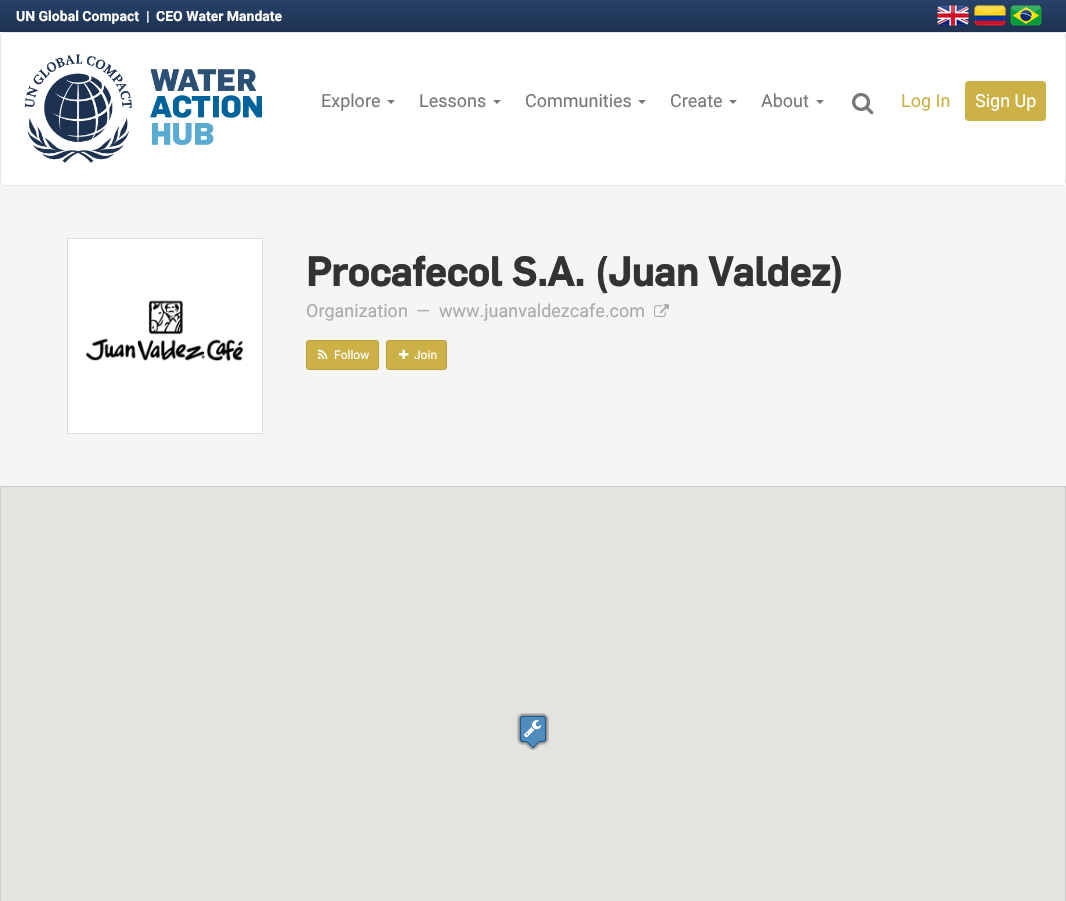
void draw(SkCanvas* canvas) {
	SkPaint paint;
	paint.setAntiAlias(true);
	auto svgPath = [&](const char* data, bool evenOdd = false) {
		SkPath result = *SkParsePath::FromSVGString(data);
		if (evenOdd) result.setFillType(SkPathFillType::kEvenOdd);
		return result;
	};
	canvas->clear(0xffffffff);
	{
		const SkColor colors[] = {0xff1e3250, 0xff274169};
		const float stops[] = {0, 1};
		const SkPoint ends[] = {{533, 32}, {533, 0}};
		paint.setShader(SkGradientShader::MakeLinear(ends, colors, stops, 2, SkTileMode::kClamp));
		paint.setAlpha(255);
	}
	canvas->drawRect(SkRect::MakeXYWH(0, 0, 1066, 32), paint);
	SkFont f1(fontMgr->matchFamilyStyle("Roboto", SkFontStyle::Bold()), 14);
	f1.setSubpixel(true);
	paint.setShader(nullptr);
	paint.setColor(0xffffffff);
	canvas->drawString("UN Global Compact", 16, 21, f1, paint);
	canvas->drawString("|", 146, 21, f1, paint);
	canvas->drawString("CEO Water Mandate", 156, 21, f1, paint);
	canvas->drawImageRect(SkImages::DeferredFromEncodedData(SkData::MakeFromFileName("img1.png")), SkRect::MakeXYWH(937, 5, 32, 21), SkSamplingOptions());
	canvas->drawImageRect(SkImages::DeferredFromEncodedData(SkData::MakeFromFileName("img2.png")), SkRect::MakeXYWH(974, 5, 32, 21), SkSamplingOptions());
	canvas->drawImageRect(SkImages::DeferredFromEncodedData(SkData::MakeFromFileName("img3.png")), SkRect::MakeXYWH(1010, 5, 32, 21), SkSamplingOptions());
	paint.setStroke(true);
	paint.setStrokeWidth(1);
	paint.setColor(0xffe7e7e7);
	canvas->drawRoundRect(SkRect::MakeXYWH(0.5, 32.5, 1065, 153), 3.5, 3.5, paint);
	canvas->drawImageRect(SkImages::DeferredFromEncodedData(SkData::MakeFromFileName("img4.png")), SkRect::MakeXYWH(24, 54, 238, 109), SkSamplingOptions());
	SkFont f2(fontMgr->matchFamilyStyle("Roboto", SkFontStyle::Normal()), 18);
	f2.setSubpixel(true);
	paint.setStroke(false);
	paint.setColor(0xff777777);
	canvas->drawString("Explore", 321, 107, f2, paint);
	canvas->drawPath(svgPath("M387 100H395L391 104Z"), paint);
	canvas->drawString("Lessons", 419, 107, f2, paint);
	canvas->drawPath(svgPath("M493 100H501L497 104Z"), paint);
	canvas->drawString("Communities", 525, 107, f2, paint);
	canvas->drawPath(svgPath("M638 100H646L642 104Z"), paint);
	canvas->drawString("Create", 670, 107, f2, paint);
	canvas->drawPath(svgPath("M729 100H737L733 104Z"), paint);
	canvas->drawString("About", 761, 107, f2, paint);
	canvas->drawPath(svgPath("M816 100H824L820 104Z"), paint);
	canvas->drawImageRect(SkImages::DeferredFromEncodedData(SkData::MakeFromFileName("img5.png")), SkRect::MakeXYWH(852, 93, 22, 22), SkSamplingOptions());
	paint.setColor(0xffccb146);
	canvas->drawString("Log In", 901, 107, f2, paint);
	canvas->drawRoundRect(SkRect::MakeXYWH(965, 81, 81, 40), 4, 4, paint);
	paint.setColor(0xffffffff);
	canvas->drawString("Sign Up", 975, 107, f2, paint);
	paint.setColor(0xfff5f5f5);
	canvas->drawRect(SkRect::MakeXYWH(0, 186, 1066, 300), paint);
	paint.setColor(0xffffffff);
	canvas->drawRect(SkRect::MakeXYWH(67.5, 238.5, 195, 195), paint);
	paint.setStroke(true);
	paint.setColor(0xffdddddd);
	canvas->drawRect(SkRect::MakeXYWH(67.5, 238.5, 195, 195), paint);
	canvas->drawImageRect(SkImages::DeferredFromEncodedData(SkData::MakeFromFileName("img6.png")), SkRect::MakeXYWH(86, 300, 158, 62), SkSamplingOptions());
	SkFont f3(fontMgr->matchFamilyStyle("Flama", SkFontStyle::Bold()), 40);
	f3.setSubpixel(true);
	paint.setStroke(false);
	paint.setColor(0xff333333);
	canvas->drawString("Procafecol S.A. (Juan Valdez)", 306, 286, f3, paint);
	paint.setColor(0xffaaaaaa);
	canvas->drawString("Organization", 306, 317, f2, paint);
	canvas->drawString("—", 416, 317, f2, paint);
	canvas->drawString("www.juanvaldezcafe.com", 439, 317, f2, paint);
	canvas->drawImageRect(SkImages::DeferredFromEncodedData(SkData::MakeFromFileName("img7.png")), SkRect::MakeXYWH(654, 304, 15, 13), SkSamplingOptions());
	paint.setColor(0xffccb146);
	canvas->drawRoundRect(SkRect::MakeXYWH(306.5, 340.5, 72, 29), 2.5, 2.5, paint);
	paint.setStroke(true);
	paint.setColor(0xffbca134);
	canvas->drawRoundRect(SkRect::MakeXYWH(306.5, 340.5, 72, 29), 2.5, 2.5, paint);
	canvas->drawImageRect(SkImages::DeferredFromEncodedData(SkData::MakeFromFileName("img8.png")), SkRect::MakeXYWH(318, 349, 10, 10), SkSamplingOptions());
	SkFont f4(fontMgr->matchFamilyStyle("Roboto", SkFontStyle::Normal()), 12);
	f4.setSubpixel(true);
	paint.setStroke(false);
	paint.setColor(0xffffffff);
	canvas->drawString("Follow", 334, 359, f4, paint);
	paint.setColor(0xffccb146);
	canvas->drawRoundRect(SkRect::MakeXYWH(386.5, 340.5, 60, 29), 2.5, 2.5, paint);
	paint.setStroke(true);
	paint.setColor(0xffbca134);
	canvas->drawRoundRect(SkRect::MakeXYWH(386.5, 340.5, 60, 29), 2.5, 2.5, paint);
	canvas->drawImageRect(SkImages::DeferredFromEncodedData(SkData::MakeFromFileName("img9.png")), SkRect::MakeXYWH(399, 349, 10, 10), SkSamplingOptions());
	paint.setStroke(false);
	paint.setColor(0xffffffff);
	canvas->drawString("Join", 414, 359, f4, paint);
	paint.setStroke(true);
	paint.setColor(0xffcccccc);
	canvas->drawRect(SkRect::MakeXYWH(0.5, 486.5, 1065, 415), paint);
	paint.setStroke(false);
	paint.setColor(0xffe5e3df);
	canvas->drawRect(SkRect::MakeXYWH(1, 487, 1064, 414), paint);
	canvas->drawImageRect(SkImages::DeferredFromEncodedData(SkData::MakeFromFileName("img10.png")), SkRect::MakeXYWH(517, 713, 32, 37), SkSamplingOptions());
	canvas->drawImageRect(SkImages::DeferredFromEncodedData(SkData::MakeFromFileName("img11.png")), SkRect::MakeXYWH(517, 713, 32, 37), SkSamplingOptions());
	canvas->drawImageRect(SkImages::DeferredFromEncodedData(SkData::MakeFromFileName("img12.png")), SkRect::MakeXYWH(517, 713, 32, 37), SkSamplingOptions());
}
